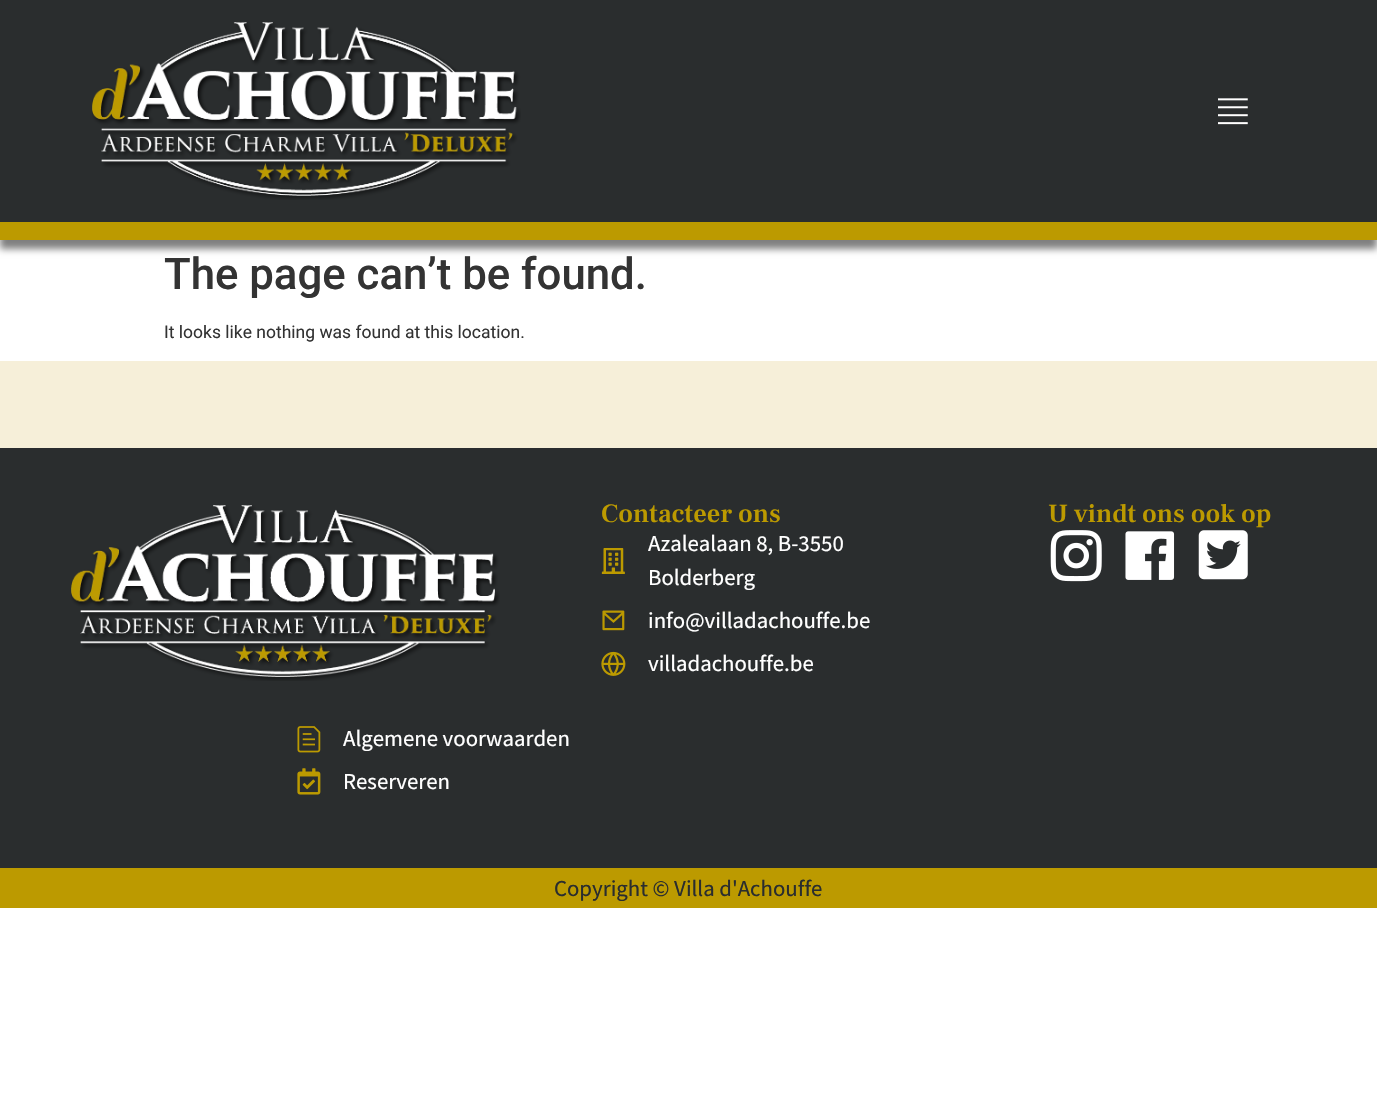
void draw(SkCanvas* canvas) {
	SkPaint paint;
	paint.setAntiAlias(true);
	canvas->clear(0xffffffff);
	paint.setColor(0x80000000);
	paint.setMaskFilter(SkMaskFilter::MakeBlur(kNormal_SkBlurStyle, 3.5));
	canvas->drawRect(SkRect::MakeXYWH(0, 9, 1377, 240), paint);
	paint.setMaskFilter(nullptr);
	paint.setColor(0xff2a2d2e);
	canvas->drawRect(SkRect::MakeXYWH(0, 0, 1377, 222), paint);
	paint.setColor(0xffbc9a00);
	canvas->drawRect(SkRect::MakeXYWH(0, 222, 1377, 18), paint);
	canvas->drawImageRect(SkImages::DeferredFromEncodedData(SkData::MakeFromFileName("img1.png")), SkRect::MakeXYWH(92, 22, 429, 178), SkSamplingOptions());
	canvas->drawImageRect(SkImages::DeferredFromEncodedData(SkData::MakeFromFileName("img2.png")), SkRect::MakeXYWH(1218, 98, 30, 27), SkSamplingOptions());
	SkFont f1(fontMgr->matchFamilyStyle("Roboto", SkFontStyle(500, SkFontStyle::kNormal_Width, SkFontStyle::kUpright_Slant)), 43.75);
	f1.setSubpixel(true);
	paint.setColor(0xff333333);
	canvas->drawString("The page can’t be found.", 164, 289, f1, paint);
	SkFont f2(fontMgr->matchFamilyStyle("Roboto", SkFontStyle::Normal()), 17.5);
	f2.setSubpixel(true);
	canvas->drawString("It looks like nothing was found at this location.", 164, 338, f2, paint);
	paint.setColor(0xfff6efd9);
	canvas->drawRect(SkRect::MakeXYWH(0, 361, 1377, 87), paint);
	paint.setColor(0xff2a2d2e);
	canvas->drawRect(SkRect::MakeXYWH(0, 448, 1377, 420), paint);
	canvas->drawImageRect(SkImages::DeferredFromEncodedData(SkData::MakeFromFileName("img3.png")), SkRect::MakeXYWH(71, 505, 429, 176), SkSamplingOptions());
	SkFont f3(fontMgr->matchFamilyStyle("Frank Ruhl Libre", SkFontStyle(600, SkFontStyle::kNormal_Width, SkFontStyle::kUpright_Slant)), 26.25);
	f3.setSubpixel(true);
	paint.setColor(0xffbc9a00);
	canvas->drawString("Contacteer ons", 601, 522, f3, paint);
	canvas->drawImageRect(SkImages::DeferredFromEncodedData(SkData::MakeFromFileName("img4.png")), SkRect::MakeXYWH(601, 548, 24, 26), SkSamplingOptions());
	SkFont f4(fontMgr->matchFamilyStyle("Assistant", SkFontStyle(500, SkFontStyle::kNormal_Width, SkFontStyle::kUpright_Slant)), 22.75);
	f4.setSubpixel(true);
	paint.setColor(0xffffffff);
	canvas->drawString("Azalealaan 8, B-3550", 648, 551, f4, paint);
	canvas->drawString("Bolderberg", 648, 585, f4, paint);
	canvas->drawImageRect(SkImages::DeferredFromEncodedData(SkData::MakeFromFileName("img5.png")), SkRect::MakeXYWH(602, 610, 23, 21), SkSamplingOptions());
	canvas->drawString("info@villadachouffe.be", 648, 628, f4, paint);
	canvas->drawImageRect(SkImages::DeferredFromEncodedData(SkData::MakeFromFileName("img6.png")), SkRect::MakeXYWH(601, 651, 25, 25), SkSamplingOptions());
	canvas->drawString("villadachouffe.be", 648, 671, f4, paint);
	paint.setColor(0xffbc9a00);
	canvas->drawString("U vindt ons ook op", 1048, 522, f3, paint);
	canvas->drawImageRect(SkImages::DeferredFromEncodedData(SkData::MakeFromFileName("img7.png")), SkRect::MakeXYWH(1050, 530, 52, 52), SkSamplingOptions());
	canvas->drawImageRect(SkImages::DeferredFromEncodedData(SkData::MakeFromFileName("img8.png")), SkRect::MakeXYWH(1125, 531, 50, 49), SkSamplingOptions());
	canvas->drawImageRect(SkImages::DeferredFromEncodedData(SkData::MakeFromFileName("img9.png")), SkRect::MakeXYWH(1198, 530, 50, 50), SkSamplingOptions());
	canvas->drawImageRect(SkImages::DeferredFromEncodedData(SkData::MakeFromFileName("img10.png")), SkRect::MakeXYWH(297, 726, 24, 27), SkSamplingOptions());
	paint.setColor(0xffffffff);
	canvas->drawString("Algemene voorwaarden", 343, 746, f4, paint);
	canvas->drawImageRect(SkImages::DeferredFromEncodedData(SkData::MakeFromFileName("img11.png")), SkRect::MakeXYWH(297, 768, 24, 27), SkSamplingOptions());
	canvas->drawString("Reserveren", 343, 789, f4, paint);
	paint.setColor(0xffbc9a00);
	canvas->drawRect(SkRect::MakeXYWH(0, 868, 1377, 40), paint);
	paint.setColor(0xff2a2d2e);
	canvas->drawString("Copyright © Villa d'Achouffe", 554, 896, f4, paint);
}
